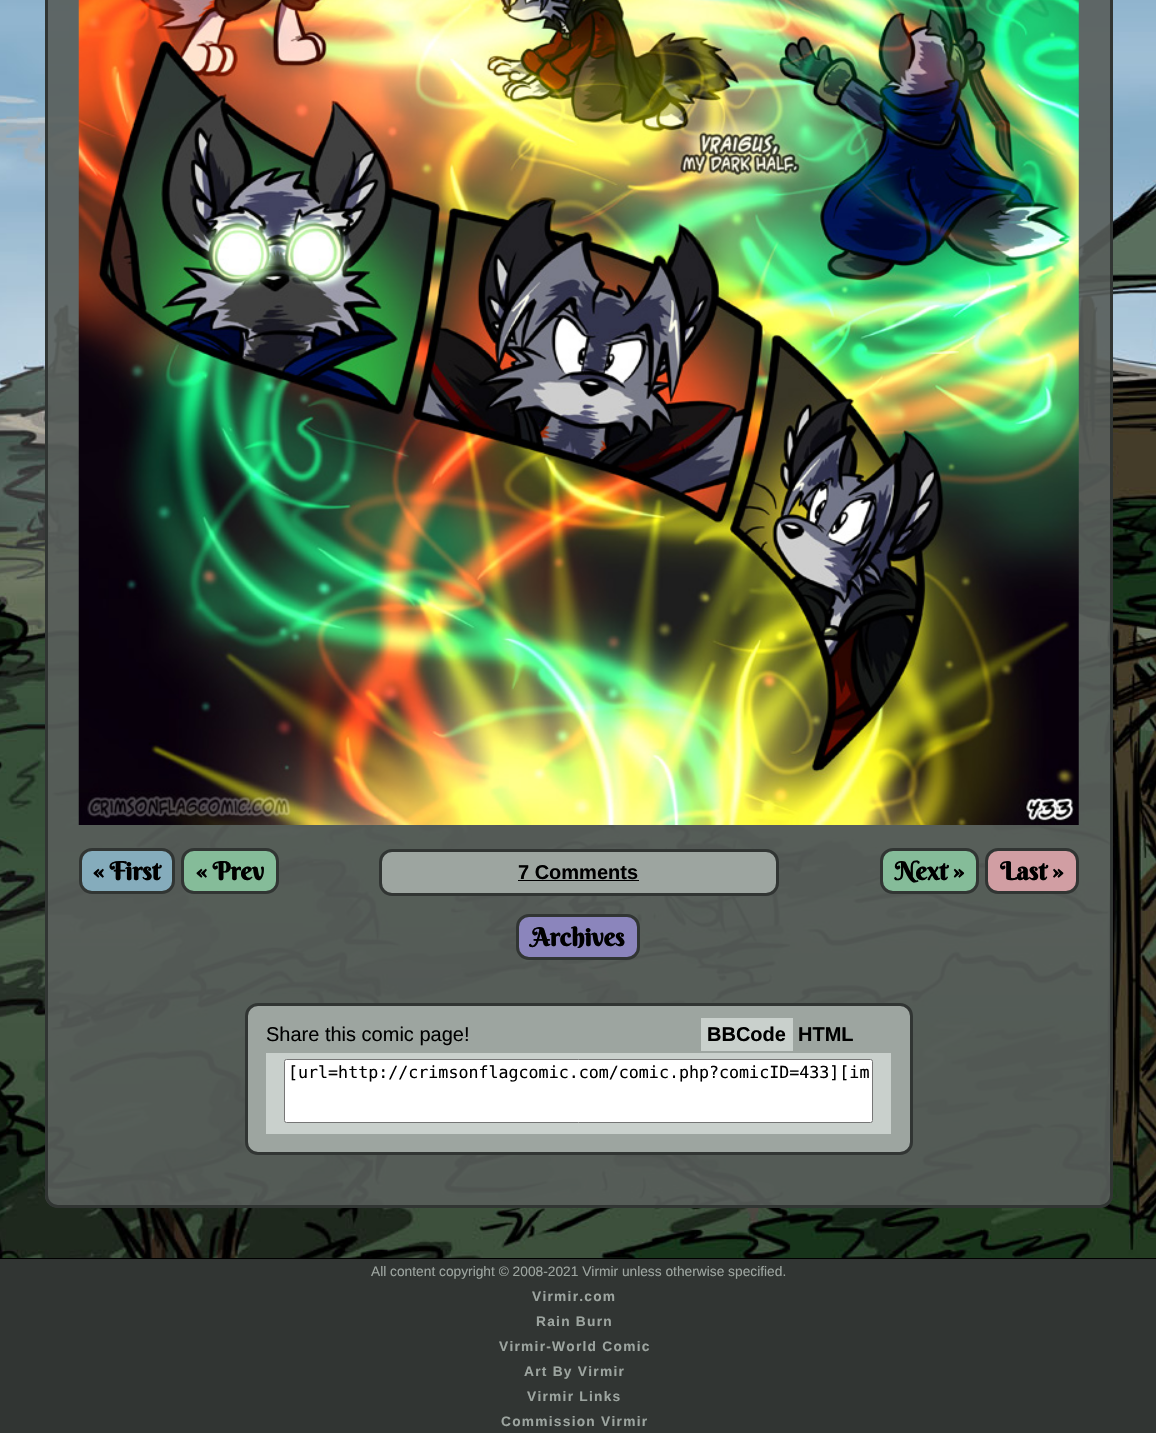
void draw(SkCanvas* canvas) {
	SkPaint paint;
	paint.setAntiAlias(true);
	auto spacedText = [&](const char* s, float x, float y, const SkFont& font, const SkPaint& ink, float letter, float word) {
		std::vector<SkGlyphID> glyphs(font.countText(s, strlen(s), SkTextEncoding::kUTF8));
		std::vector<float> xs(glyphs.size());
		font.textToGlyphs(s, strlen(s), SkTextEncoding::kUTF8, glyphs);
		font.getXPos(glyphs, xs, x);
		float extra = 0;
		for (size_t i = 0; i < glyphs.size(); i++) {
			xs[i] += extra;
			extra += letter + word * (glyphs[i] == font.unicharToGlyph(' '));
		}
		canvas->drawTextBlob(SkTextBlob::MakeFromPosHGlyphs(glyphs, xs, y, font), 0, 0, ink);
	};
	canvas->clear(0xffffffff);
	canvas->drawImageRect(SkImages::DeferredFromEncodedData(SkData::MakeFromFileName("img1.png")), SkRect::MakeXYWH(0, 404, 1156, 854), SkSamplingOptions());
	canvas->drawImageRect(SkImages::DeferredFromEncodedData(SkData::MakeFromFileName("img2.png")), SkRect::MakeXYWH(0, 0, 1156, 404), SkSamplingOptions());
	canvas->drawImageRect(SkImages::DeferredFromEncodedData(SkData::MakeFromFileName("img3.png")), SkRect::MakeXYWH(45, 0, 1068, 1208), SkSamplingOptions());
	paint.setStroke(true);
	paint.setStrokeWidth(3);
	paint.setColor(0xff313533);
	canvas->drawRoundRect(SkRect::MakeXYWH(46.5, -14.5, 1065, 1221), 11.5, 11.5, paint);
	canvas->drawImageRect(SkImages::DeferredFromEncodedData(SkData::MakeFromFileName("img4.png")), SkRect::MakeXYWH(78, 0, 1001, 825), SkSamplingOptions());
	paint.setStroke(false);
	paint.setColor(0xff85acbc);
	canvas->drawRoundRect(SkRect::MakeXYWH(80.5, 849.5, 93, 43), 11.5, 11.5, paint);
	paint.setStroke(true);
	paint.setColor(0xff313533);
	canvas->drawRoundRect(SkRect::MakeXYWH(80.5, 849.5, 93, 43), 11.5, 11.5, paint);
	SkFont f1(fontMgr->matchFamilyStyle("Berkshire Swash", SkFontStyle::Bold()), 25);
	f1.setSubpixel(true);
	paint.setStroke(false);
	paint.setColor(0xff000000);
	canvas->drawString("« First", 93, 880, f1, paint);
	paint.setColor(0xff85bc99);
	canvas->drawRoundRect(SkRect::MakeXYWH(182.5, 849.5, 95, 43), 11.5, 11.5, paint);
	paint.setStroke(true);
	paint.setColor(0xff313533);
	canvas->drawRoundRect(SkRect::MakeXYWH(182.5, 849.5, 95, 43), 11.5, 11.5, paint);
	paint.setStroke(false);
	paint.setColor(0xff000000);
	canvas->drawString("« Prev", 196, 880, f1, paint);
	paint.setColor(0xff9da5a0);
	canvas->drawRoundRect(SkRect::MakeXYWH(380.5, 850.5, 397, 44), 11.5, 11.5, paint);
	paint.setStroke(true);
	paint.setColor(0xff313533);
	canvas->drawRoundRect(SkRect::MakeXYWH(380.5, 850.5, 397, 44), 11.5, 11.5, paint);
	SkFont f2(fontMgr->matchFamilyStyle("Liberation Sans", SkFontStyle::Bold()), 20);
	f2.setSubpixel(true);
	paint.setStroke(false);
	paint.setColor(0xff000000);
	canvas->drawString("7 Comments", 518, 879, f2, paint);
	canvas->drawRect(SkRect::MakeXYWH(518, 880, 121, 1), paint);
	paint.setColor(0xff85bc99);
	canvas->drawRoundRect(SkRect::MakeXYWH(881.5, 849.5, 96, 43), 11.5, 11.5, paint);
	paint.setStroke(true);
	paint.setColor(0xff313533);
	canvas->drawRoundRect(SkRect::MakeXYWH(881.5, 849.5, 96, 43), 11.5, 11.5, paint);
	paint.setStroke(false);
	paint.setColor(0xff000000);
	canvas->drawString("Next »", 895, 880, f1, paint);
	paint.setColor(0xffd19ea3);
	canvas->drawRoundRect(SkRect::MakeXYWH(986.5, 849.5, 91, 43), 11.5, 11.5, paint);
	paint.setStroke(true);
	paint.setColor(0xff313533);
	canvas->drawRoundRect(SkRect::MakeXYWH(986.5, 849.5, 91, 43), 11.5, 11.5, paint);
	paint.setStroke(false);
	paint.setColor(0xff000000);
	canvas->drawString("Last »", 1000, 880, f1, paint);
	paint.setColor(0xff8b85bc);
	canvas->drawRoundRect(SkRect::MakeXYWH(517.5, 915.5, 121, 43), 11.5, 11.5, paint);
	paint.setStroke(true);
	paint.setColor(0xff313533);
	canvas->drawRoundRect(SkRect::MakeXYWH(517.5, 915.5, 121, 43), 11.5, 11.5, paint);
	paint.setStroke(false);
	paint.setColor(0xff000000);
	canvas->drawString("Archives", 531, 946, f1, paint);
	paint.setColor(0xff9da5a0);
	canvas->drawRoundRect(SkRect::MakeXYWH(246.5, 1004.5, 665, 149), 11.5, 11.5, paint);
	paint.setStroke(true);
	paint.setColor(0xff313533);
	canvas->drawRoundRect(SkRect::MakeXYWH(246.5, 1004.5, 665, 149), 11.5, 11.5, paint);
	SkFont f3(fontMgr->matchFamilyStyle("Liberation Sans", SkFontStyle::Normal()), 20);
	f3.setSubpixel(true);
	paint.setStroke(false);
	paint.setColor(0xff000000);
	canvas->drawString("Share this comic page!", 266, 1041, f3, paint);
	paint.setColor(0xffc9d0cc);
	canvas->drawRect(SkRect::MakeXYWH(701, 1018, 92, 33), paint);
	paint.setColor(0xff000000);
	canvas->drawString("BBCode", 707, 1041, f2, paint);
	canvas->drawString("HTML", 798, 1041, f2, paint);
	paint.setColor(0xffc9d0cc);
	canvas->drawRect(SkRect::MakeXYWH(266, 1053, 625, 81), paint);
	paint.setColor(0xffffffff);
	canvas->drawRoundRect(SkRect::MakeXYWH(284.5, 1059.5, 588, 63), 2, 2, paint);
	paint.setStroke(true);
	paint.setStrokeWidth(1);
	paint.setColor(0xff767676);
	canvas->drawRoundRect(SkRect::MakeXYWH(284.5, 1059.5, 588, 63), 2, 2, paint);
	SkFont f4(fontMgr->matchFamilyStyle("DejaVu Sans Mono", SkFontStyle::Normal()), 16.65);
	f4.setSubpixel(true);
	paint.setStroke(false);
	paint.setColor(0xff000000);
	canvas->drawString("[url=http://crimsonflagcomic.com/comic.php?comicID=433][im", 288, 1078, f4, paint);
	paint.setColor(0xff313533);
	canvas->drawRect(SkRect::MakeXYWH(0, 1259, 1156, 174), paint);
	paint.setColor(0xff000000);
	canvas->drawRect(SkRect::MakeXYWH(0, 1258, 1156, 1), paint);
	SkFont f5(fontMgr->matchFamilyStyle("Liberation Sans", SkFontStyle::Normal()), 13.75);
	f5.setSubpixel(true);
	paint.setColor(0xff9da5a0);
	canvas->drawString("All content copyright © 2008-2021 Virmir unless otherwise specified.", 371, 1276, f5, paint);
	SkFont f6(fontMgr->matchFamilyStyle("Liberation Sans", SkFontStyle::Bold()), 13.75);
	f6.setSubpixel(true);
	spacedText("Virmir.com", 532, 1301, f6, paint, 1.25, 0);
	spacedText("Rain Burn", 536, 1326, f6, paint, 1.25, 0);
	spacedText("Virmir-World Comic", 499, 1351, f6, paint, 1.25, 0);
	spacedText("Art By Virmir", 524, 1376, f6, paint, 1.25, 0);
	spacedText("Virmir Links", 527, 1401, f6, paint, 1.25, 0);
	spacedText("Commission Virmir", 501, 1426, f6, paint, 1.25, 0);
}
